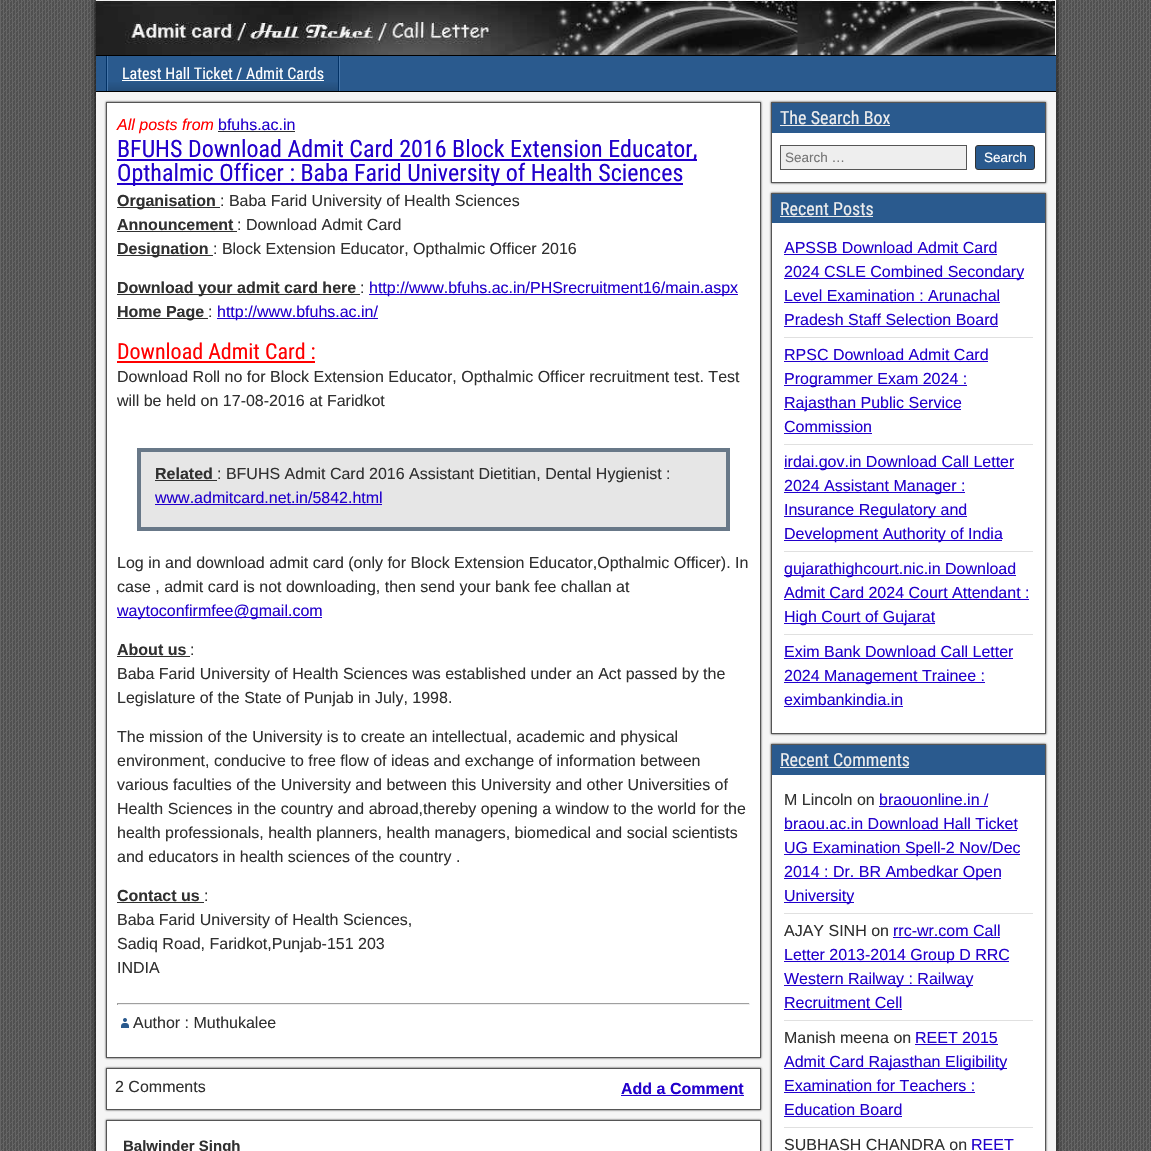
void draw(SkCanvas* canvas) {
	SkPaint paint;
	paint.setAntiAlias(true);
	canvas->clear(0xff505050);
	canvas->drawImageRect(SkImages::DeferredFromEncodedData(SkData::MakeFromFileName("img1.png")), SkRect::MakeXYWH(0, 0, 1151, 1151), SkSamplingOptions());
	paint.setColor(0xff000000);
	paint.setMaskFilter(SkMaskFilter::MakeBlur(kNormal_SkBlurStyle, 3));
	canvas->drawRect(SkRect::MakeXYWH(96, 0, 960, 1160), paint);
	paint.setMaskFilter(nullptr);
	paint.setColor(0xffffffff);
	canvas->drawRect(SkRect::MakeXYWH(1055, 0, 1, 55), paint);
	paint.setColor(0xff000000);
	canvas->drawRect(SkRect::MakeXYWH(96, 55, 960, 1), paint);
	canvas->drawImageRect(SkImages::DeferredFromEncodedData(SkData::MakeFromFileName("img2.png")), SkRect::MakeXYWH(96, 0, 959, 55), SkSamplingOptions());
	paint.setColor(0xff2a5a8e);
	canvas->drawRect(SkRect::MakeXYWH(96, 56, 960, 35), paint);
	paint.setColor(0xff000000);
	canvas->drawRect(SkRect::MakeXYWH(96, 91, 960, 1), paint);
	paint.setColor(0xff4878ac);
	canvas->drawRect(SkRect::MakeXYWH(339, 56, 1, 35), paint);
	paint.setColor(0xff023266);
	canvas->drawRect(SkRect::MakeXYWH(106, 56, 1, 35), paint);
	{
		const SkColor colors[] = {0xff2a5a8e, 0xff244d79};
		const float stops[] = {0.7, 1};
		const SkPoint ends[] = {{223, 56}, {223, 91}};
		paint.setShader(SkGradientShader::MakeLinear(ends, colors, stops, 2, SkTileMode::kClamp));
		paint.setAlpha(255);
	}
	canvas->drawRect(SkRect::MakeXYWH(108, 82, 230, 9), paint);
	paint.setShader(nullptr);
	paint.setColor(0xff023266);
	canvas->drawRect(SkRect::MakeXYWH(338, 56, 1, 35), paint);
	paint.setColor(0xff4878ac);
	canvas->drawRect(SkRect::MakeXYWH(107, 56, 1, 35), paint);
	SkFont f1(fontMgr->matchFamilyStyle("Roboto Condensed", SkFontStyle::Normal()), 16);
	f1.setSubpixel(true);
	paint.setColor(0xffffffff);
	canvas->drawString("Latest Hall Ticket / Admit Cards", 122, 79, f1, paint);
	canvas->drawRect(SkRect::MakeXYWH(122, 80, 202, 1), paint);
	paint.setColor(0xfff5f5f5);
	canvas->drawRect(SkRect::MakeXYWH(96, 92, 960, 1059), paint);
	paint.setColor(0xff333333);
	paint.setMaskFilter(SkMaskFilter::MakeBlur(kNormal_SkBlurStyle, 1));
	canvas->drawRect(SkRect::MakeXYWH(106, 102, 655, 956), paint);
	paint.setMaskFilter(nullptr);
	paint.setColor(0xffffffff);
	canvas->drawRect(SkRect::MakeXYWH(106.5, 102.5, 654, 955), paint);
	paint.setStroke(true);
	paint.setStrokeWidth(1);
	paint.setColor(0xff555555);
	canvas->drawRect(SkRect::MakeXYWH(106.5, 102.5, 654, 955), paint);
	SkFont f2(fontMgr->matchFamilyStyle("Liberation Sans", SkFontStyle::Italic()), 16);
	f2.setSubpixel(true);
	paint.setStroke(false);
	paint.setColor(0xffff0000);
	canvas->drawString("All posts from", 117, 130, f2, paint);
	SkFont f3(fontMgr->matchFamilyStyle("Liberation Sans", SkFontStyle::Normal()), 16);
	f3.setSubpixel(true);
	paint.setColor(0xff2200cc);
	canvas->drawString("bfuhs.ac.in", 218, 130, f3, paint);
	paint.setColor(0xff303030);
	canvas->drawRect(SkRect::MakeXYWH(218, 131, 77, 1), paint);
	paint.setColor(0xff2200cc);
	canvas->drawRect(SkRect::MakeXYWH(117, 159, 580, 2), paint);
	SkFont f4(fontMgr->matchFamilyStyle("Roboto Condensed", SkFontStyle::Normal()), 24);
	f4.setSubpixel(true);
	canvas->drawString("BFUHS Download Admit Card 2016 Block Extension Educator,", 117, 157, f4, paint);
	canvas->drawRect(SkRect::MakeXYWH(117, 183, 566, 2), paint);
	canvas->drawString("Opthalmic Officer : Baba Farid University of Health Sciences", 117, 181, f4, paint);
	paint.setColor(0xff303030);
	canvas->drawRect(SkRect::MakeXYWH(117, 207, 103, 1), paint);
	SkFont f5(fontMgr->matchFamilyStyle("Liberation Sans", SkFontStyle::Bold()), 16);
	f5.setSubpixel(true);
	canvas->drawString("Organisation", 117, 206, f5, paint);
	canvas->drawString(": Baba Farid University of Health Sciences", 220, 206, f3, paint);
	canvas->drawString("Announcement", 117, 230, f5, paint);
	canvas->drawRect(SkRect::MakeXYWH(117, 231, 120, 1), paint);
	canvas->drawString(": Download Admit Card", 237, 230, f3, paint);
	canvas->drawRect(SkRect::MakeXYWH(117, 255, 96, 1), paint);
	canvas->drawString("Designation", 117, 254, f5, paint);
	canvas->drawString(": Block Extension Educator, Opthalmic Officer 2016", 213, 254, f3, paint);
	canvas->drawRect(SkRect::MakeXYWH(117, 294, 243, 1), paint);
	canvas->drawString("Download your admit card here", 117, 293, f5, paint);
	canvas->drawString(":", 360, 293, f3, paint);
	paint.setColor(0xff2200cc);
	canvas->drawRect(SkRect::MakeXYWH(369, 294, 369, 1), paint);
	canvas->drawString("http://www.bfuhs.ac.in/PHSrecruitment16/main.aspx", 369, 293, f3, paint);
	paint.setColor(0xff303030);
	canvas->drawRect(SkRect::MakeXYWH(117, 318, 91, 1), paint);
	canvas->drawString("Home Page", 117, 317, f5, paint);
	canvas->drawString(":", 208, 317, f3, paint);
	paint.setColor(0xff2200cc);
	canvas->drawRect(SkRect::MakeXYWH(217, 318, 161, 1), paint);
	canvas->drawString("http://www.bfuhs.ac.in/", 217, 317, f3, paint);
	SkFont f6(fontMgr->matchFamilyStyle("Roboto Condensed", SkFontStyle::Normal()), 22);
	f6.setSubpixel(true);
	paint.setColor(0xffff0000);
	canvas->drawString("Download Admit Card :", 117, 359, f6, paint);
	canvas->drawRect(SkRect::MakeXYWH(117, 361, 198, 2), paint);
	paint.setColor(0xff303030);
	canvas->drawString("Download Roll no for Block Extension Educator, Opthalmic Officer recruitment test. Test", 117, 382, f3, paint);
	canvas->drawString("will be held on 17-08-2016 at Faridkot", 117, 406, f3, paint);
	paint.setColor(0xffe6e6e6);
	canvas->drawRect(SkRect::MakeXYWH(139, 450, 589, 79), paint);
	paint.setStroke(true);
	paint.setStrokeWidth(4);
	paint.setColor(0xff687888);
	canvas->drawRect(SkRect::MakeXYWH(139, 450, 589, 79), paint);
	paint.setStroke(false);
	paint.setColor(0xff303030);
	canvas->drawString("Related", 155, 479, f5, paint);
	canvas->drawRect(SkRect::MakeXYWH(155, 480, 62, 1), paint);
	canvas->drawString(": BFUHS Admit Card 2016 Assistant Dietitian, Dental Hygienist :", 217, 479, f3, paint);
	paint.setColor(0xff2200cc);
	canvas->drawString("www.admitcard.net.in/5842.html", 155, 503, f3, paint);
	canvas->drawRect(SkRect::MakeXYWH(155, 504, 227, 1), paint);
	paint.setColor(0xff303030);
	canvas->drawString("Log in and download admit card (only for Block Extension Educator,Opthalmic Officer). In", 117, 568, f3, paint);
	canvas->drawString("case , admit card is not downloading, then send your bank fee challan at", 117, 592, f3, paint);
	paint.setColor(0xff2200cc);
	canvas->drawRect(SkRect::MakeXYWH(117, 617, 205, 1), paint);
	canvas->drawString("waytoconfirmfee@gmail.com", 117, 616, f3, paint);
	paint.setColor(0xff303030);
	canvas->drawString("About us", 117, 655, f5, paint);
	canvas->drawRect(SkRect::MakeXYWH(117, 656, 73, 1), paint);
	canvas->drawString(":", 190, 655, f3, paint);
	canvas->drawString("Baba Farid University of Health Sciences was established under an Act passed by the", 117, 679, f3, paint);
	canvas->drawString("Legislature of the State of Punjab in July, 1998.", 117, 703, f3, paint);
	canvas->drawString("The mission of the University is to create an intellectual, academic and physical", 117, 742, f3, paint);
	canvas->drawString("environment, conducive to free flow of ideas and exchange of information between", 117, 766, f3, paint);
	canvas->drawString("various faculties of the University and between this University and other Universities of", 117, 790, f3, paint);
	canvas->drawString("Health Sciences in the country and abroad,thereby opening a window to the world for the", 117, 814, f3, paint);
	canvas->drawString("health professionals, health planners, health managers, biomedical and social scientists", 117, 838, f3, paint);
	canvas->drawString("and educators in health sciences of the country .", 117, 862, f3, paint);
	canvas->drawString("Contact us", 117, 901, f5, paint);
	canvas->drawRect(SkRect::MakeXYWH(117, 902, 87, 1), paint);
	canvas->drawString(":", 204, 901, f3, paint);
	canvas->drawString("Baba Farid University of Health Sciences,", 117, 925, f3, paint);
	canvas->drawString("Sadiq Road, Faridkot,Punjab-151 203", 117, 949, f3, paint);
	canvas->drawString("INDIA", 117, 973, f3, paint);
	paint.setColor(0xff9f9f9f);
	canvas->drawRect(SkRect::MakeXYWH(117, 1003, 633, 1), paint);
	paint.setColor(0xffeeeeee);
	canvas->drawRect(SkRect::MakeXYWH(749, 1003, 1, 2), paint);
	canvas->drawRect(SkRect::MakeXYWH(117, 1004, 633, 1), paint);
	paint.setColor(0xff9f9f9f);
	canvas->drawRect(SkRect::MakeXYWH(117, 1003, 1, 2), paint);
	canvas->drawImageRect(SkImages::DeferredFromEncodedData(SkData::MakeFromFileName("img3.png")), SkRect::MakeXYWH(121, 1018, 8, 10), SkSamplingOptions());
	paint.setColor(0xff303030);
	canvas->drawString("Author : Muthukalee", 133, 1028, f3, paint);
	paint.setColor(0xff333333);
	paint.setMaskFilter(SkMaskFilter::MakeBlur(kNormal_SkBlurStyle, 1));
	canvas->drawRect(SkRect::MakeXYWH(106, 1068, 655, 42), paint);
	paint.setMaskFilter(nullptr);
	paint.setColor(0xffffffff);
	canvas->drawRect(SkRect::MakeXYWH(106.5, 1068.5, 654, 41), paint);
	paint.setStroke(true);
	paint.setStrokeWidth(1);
	paint.setColor(0xff555555);
	canvas->drawRect(SkRect::MakeXYWH(106.5, 1068.5, 654, 41), paint);
	paint.setStroke(false);
	paint.setColor(0xff303030);
	canvas->drawString("2 Comments", 115, 1092, f3, paint);
	paint.setColor(0xff2200cc);
	canvas->drawString("Add a Comment", 621, 1094, f5, paint);
	canvas->drawRect(SkRect::MakeXYWH(621, 1095, 123, 1), paint);
	paint.setColor(0xff333333);
	paint.setMaskFilter(SkMaskFilter::MakeBlur(kNormal_SkBlurStyle, 1));
	canvas->drawRect(SkRect::MakeXYWH(106, 1120, 655, 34), paint);
	paint.setMaskFilter(nullptr);
	paint.setColor(0xffffffff);
	canvas->drawRect(SkRect::MakeXYWH(106.5, 1120.5, 654, 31), paint);
	paint.setStroke(true);
	paint.setColor(0xff555555);
	canvas->drawRect(SkRect::MakeXYWH(106.5, 1120.5, 654, 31), paint);
	SkFont f7(fontMgr->matchFamilyStyle("Liberation Sans", SkFontStyle::Bold()), 15);
	f7.setSubpixel(true);
	paint.setStroke(false);
	paint.setColor(0xff303030);
	canvas->drawString("Balwinder Singh", 123, 1151, f7, paint);
	paint.setColor(0xff333333);
	paint.setMaskFilter(SkMaskFilter::MakeBlur(kNormal_SkBlurStyle, 1));
	canvas->drawRect(SkRect::MakeXYWH(771, 102, 275, 81), paint);
	paint.setMaskFilter(nullptr);
	paint.setColor(0xffffffff);
	canvas->drawRect(SkRect::MakeXYWH(772, 133, 273, 49), paint);
	paint.setStroke(true);
	paint.setColor(0xff555555);
	canvas->drawRect(SkRect::MakeXYWH(771.5, 102.5, 274, 80), paint);
	paint.setStroke(false);
	paint.setColor(0xff2a5a8e);
	canvas->drawRect(SkRect::MakeXYWH(772, 103, 273, 30), paint);
	SkFont f8(fontMgr->matchFamilyStyle("Roboto Condensed", SkFontStyle::Normal()), 18);
	f8.setSubpixel(true);
	paint.setColor(0xffeeeeee);
	canvas->drawString("The Search Box", 780, 124, f8, paint);
	canvas->drawRect(SkRect::MakeXYWH(780, 125, 110, 1), paint);
	canvas->drawRect(SkRect::MakeXYWH(780.5, 145.5, 186, 24), paint);
	paint.setStroke(true);
	paint.setColor(0xff555555);
	canvas->drawRect(SkRect::MakeXYWH(780.5, 145.5, 186, 24), paint);
	SkFont f9(fontMgr->matchFamilyStyle("Liberation Sans", SkFontStyle::Normal()), 13.5);
	f9.setSubpixel(true);
	paint.setStroke(false);
	paint.setColor(0xff757575);
	canvas->drawString("Search …", 785, 162, f9, paint);
	paint.setColor(0xff2a5a8e);
	canvas->drawRoundRect(SkRect::MakeXYWH(975.5, 145.5, 59, 24), 2.5, 2.5, paint);
	paint.setStroke(true);
	paint.setColor(0xff333333);
	canvas->drawRoundRect(SkRect::MakeXYWH(975.5, 145.5, 59, 24), 2.5, 2.5, paint);
	paint.setStroke(false);
	paint.setColor(0xffffffff);
	canvas->drawString("Search", 984, 162, f9, paint);
	paint.setColor(0xff333333);
	paint.setMaskFilter(SkMaskFilter::MakeBlur(kNormal_SkBlurStyle, 1));
	canvas->drawRect(SkRect::MakeXYWH(771, 193, 275, 541), paint);
	paint.setMaskFilter(nullptr);
	paint.setColor(0xffffffff);
	canvas->drawRect(SkRect::MakeXYWH(772, 223, 273, 510), paint);
	paint.setStroke(true);
	paint.setColor(0xff555555);
	canvas->drawRect(SkRect::MakeXYWH(771.5, 193.5, 274, 540), paint);
	paint.setStroke(false);
	paint.setColor(0xff2a5a8e);
	canvas->drawRect(SkRect::MakeXYWH(772, 194, 273, 29), paint);
	paint.setColor(0xffeeeeee);
	canvas->drawString("Recent Posts", 780, 215, f8, paint);
	canvas->drawRect(SkRect::MakeXYWH(780, 216, 93, 1), paint);
	paint.setColor(0xffe0e0e0);
	canvas->drawRect(SkRect::MakeXYWH(784, 337, 249, 1), paint);
	paint.setColor(0xff2200cc);
	canvas->drawString("APSSB Download Admit Card", 784, 253, f3, paint);
	canvas->drawRect(SkRect::MakeXYWH(784, 254, 213, 1), paint);
	canvas->drawRect(SkRect::MakeXYWH(784, 278, 240, 1), paint);
	canvas->drawString("2024 CSLE Combined Secondary", 784, 277, f3, paint);
	canvas->drawString("Level Examination : Arunachal", 784, 301, f3, paint);
	canvas->drawRect(SkRect::MakeXYWH(784, 302, 216, 1), paint);
	canvas->drawString("Pradesh Staff Selection Board", 784, 325, f3, paint);
	canvas->drawRect(SkRect::MakeXYWH(784, 326, 214, 1), paint);
	paint.setColor(0xffe0e0e0);
	canvas->drawRect(SkRect::MakeXYWH(784, 444, 249, 1), paint);
	paint.setColor(0xff2200cc);
	canvas->drawString("RPSC Download Admit Card", 784, 360, f3, paint);
	canvas->drawRect(SkRect::MakeXYWH(784, 361, 204, 1), paint);
	canvas->drawRect(SkRect::MakeXYWH(784, 385, 183, 1), paint);
	canvas->drawString("Programmer Exam 2024 :", 784, 384, f3, paint);
	canvas->drawRect(SkRect::MakeXYWH(784, 409, 177, 1), paint);
	canvas->drawString("Rajasthan Public Service", 784, 408, f3, paint);
	canvas->drawString("Commission", 784, 432, f3, paint);
	canvas->drawRect(SkRect::MakeXYWH(784, 433, 88, 1), paint);
	paint.setColor(0xffe0e0e0);
	canvas->drawRect(SkRect::MakeXYWH(784, 551, 249, 1), paint);
	paint.setColor(0xff2200cc);
	canvas->drawRect(SkRect::MakeXYWH(784, 468, 230, 1), paint);
	canvas->drawString("irdai.gov.in Download Call Letter", 784, 467, f3, paint);
	canvas->drawRect(SkRect::MakeXYWH(784, 492, 181, 1), paint);
	canvas->drawString("2024 Assistant Manager :", 784, 491, f3, paint);
	canvas->drawRect(SkRect::MakeXYWH(784, 516, 183, 1), paint);
	canvas->drawString("Insurance Regulatory and", 784, 515, f3, paint);
	canvas->drawRect(SkRect::MakeXYWH(784, 540, 218, 1), paint);
	canvas->drawString("Development Authority of India", 784, 539, f3, paint);
	paint.setColor(0xffe0e0e0);
	canvas->drawRect(SkRect::MakeXYWH(784, 634, 249, 1), paint);
	paint.setColor(0xff2200cc);
	canvas->drawRect(SkRect::MakeXYWH(784, 575, 232, 1), paint);
	canvas->drawString("gujarathighcourt.nic.in Download", 784, 574, f3, paint);
	canvas->drawString("Admit Card 2024 Court Attendant :", 784, 598, f3, paint);
	canvas->drawRect(SkRect::MakeXYWH(784, 599, 245, 1), paint);
	canvas->drawRect(SkRect::MakeXYWH(784, 623, 151, 1), paint);
	canvas->drawString("High Court of Gujarat", 784, 622, f3, paint);
	canvas->drawString("Exim Bank Download Call Letter", 784, 657, f3, paint);
	canvas->drawRect(SkRect::MakeXYWH(784, 658, 229, 1), paint);
	canvas->drawRect(SkRect::MakeXYWH(784, 682, 201, 1), paint);
	canvas->drawString("2024 Management Trainee :", 784, 681, f3, paint);
	canvas->drawString("eximbankindia.in", 784, 705, f3, paint);
	canvas->drawRect(SkRect::MakeXYWH(784, 706, 119, 1), paint);
	paint.setColor(0xff333333);
	paint.setMaskFilter(SkMaskFilter::MakeBlur(kNormal_SkBlurStyle, 1));
	canvas->drawRect(SkRect::MakeXYWH(771, 744, 275, 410), paint);
	paint.setMaskFilter(nullptr);
	paint.setColor(0xffffffff);
	canvas->drawRect(SkRect::MakeXYWH(772, 775, 273, 376), paint);
	paint.setStroke(true);
	paint.setColor(0xff555555);
	canvas->drawRect(SkRect::MakeXYWH(771.5, 744.5, 274, 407), paint);
	paint.setStroke(false);
	paint.setColor(0xff2a5a8e);
	canvas->drawRect(SkRect::MakeXYWH(772, 745, 273, 30), paint);
	paint.setColor(0xffeeeeee);
	canvas->drawString("Recent Comments", 780, 766, f8, paint);
	canvas->drawRect(SkRect::MakeXYWH(780, 767, 129, 1), paint);
	paint.setColor(0xffe0e0e0);
	canvas->drawRect(SkRect::MakeXYWH(784, 913, 249, 1), paint);
	paint.setColor(0xff303030);
	canvas->drawString("M Lincoln on", 784, 805, f3, paint);
	paint.setColor(0xff2200cc);
	canvas->drawString("braouonline.in /", 879, 805, f3, paint);
	canvas->drawRect(SkRect::MakeXYWH(879, 806, 109, 1), paint);
	canvas->drawString("braou.ac.in Download Hall Ticket", 784, 829, f3, paint);
	canvas->drawRect(SkRect::MakeXYWH(784, 830, 233, 1), paint);
	canvas->drawRect(SkRect::MakeXYWH(784, 854, 236, 1), paint);
	canvas->drawString("UG Examination Spell-2 Nov/Dec", 784, 853, f3, paint);
	canvas->drawRect(SkRect::MakeXYWH(784, 878, 217, 1), paint);
	canvas->drawString("2014 : Dr. BR Ambedkar Open", 784, 877, f3, paint);
	canvas->drawRect(SkRect::MakeXYWH(784, 902, 70, 1), paint);
	canvas->drawString("University", 784, 901, f3, paint);
	paint.setColor(0xffe0e0e0);
	canvas->drawRect(SkRect::MakeXYWH(784, 1020, 249, 1), paint);
	paint.setColor(0xff303030);
	canvas->drawString("AJAY SINH on", 784, 936, f3, paint);
	paint.setColor(0xff2200cc);
	canvas->drawString("rrc-wr.com Call", 893, 936, f3, paint);
	canvas->drawRect(SkRect::MakeXYWH(893, 937, 107, 1), paint);
	canvas->drawRect(SkRect::MakeXYWH(784, 961, 225, 1), paint);
	canvas->drawString("Letter 2013-2014 Group D RRC", 784, 960, f3, paint);
	canvas->drawRect(SkRect::MakeXYWH(784, 985, 189, 1), paint);
	canvas->drawString("Western Railway : Railway", 784, 984, f3, paint);
	canvas->drawString("Recruitment Cell", 784, 1008, f3, paint);
	canvas->drawRect(SkRect::MakeXYWH(784, 1009, 118, 1), paint);
	paint.setColor(0xffe0e0e0);
	canvas->drawRect(SkRect::MakeXYWH(784, 1127, 249, 1), paint);
	paint.setColor(0xff303030);
	canvas->drawString("Manish meena on", 784, 1043, f3, paint);
	paint.setColor(0xff2200cc);
	canvas->drawString("REET 2015", 915, 1043, f3, paint);
	canvas->drawRect(SkRect::MakeXYWH(915, 1044, 83, 1), paint);
	canvas->drawRect(SkRect::MakeXYWH(784, 1068, 223, 1), paint);
	canvas->drawString("Admit Card Rajasthan Eligibility", 784, 1067, f3, paint);
	canvas->drawString("Examination for Teachers :", 784, 1091, f3, paint);
	canvas->drawRect(SkRect::MakeXYWH(784, 1092, 191, 1), paint);
	canvas->drawString("Education Board", 784, 1115, f3, paint);
	canvas->drawRect(SkRect::MakeXYWH(784, 1116, 118, 1), paint);
	paint.setColor(0xff303030);
	canvas->drawString("SUBHASH CHANDRA on", 784, 1150, f3, paint);
	paint.setColor(0xff2200cc);
	canvas->drawString("REET", 971, 1150, f3, paint);
}
